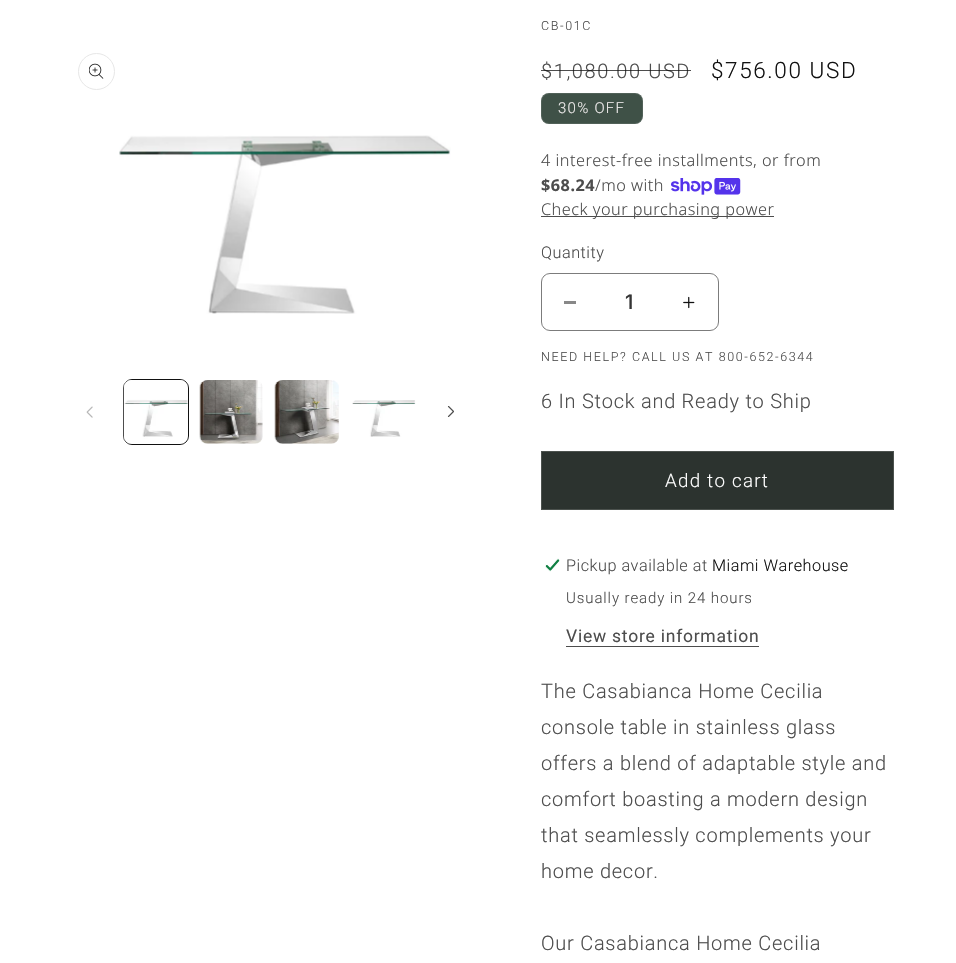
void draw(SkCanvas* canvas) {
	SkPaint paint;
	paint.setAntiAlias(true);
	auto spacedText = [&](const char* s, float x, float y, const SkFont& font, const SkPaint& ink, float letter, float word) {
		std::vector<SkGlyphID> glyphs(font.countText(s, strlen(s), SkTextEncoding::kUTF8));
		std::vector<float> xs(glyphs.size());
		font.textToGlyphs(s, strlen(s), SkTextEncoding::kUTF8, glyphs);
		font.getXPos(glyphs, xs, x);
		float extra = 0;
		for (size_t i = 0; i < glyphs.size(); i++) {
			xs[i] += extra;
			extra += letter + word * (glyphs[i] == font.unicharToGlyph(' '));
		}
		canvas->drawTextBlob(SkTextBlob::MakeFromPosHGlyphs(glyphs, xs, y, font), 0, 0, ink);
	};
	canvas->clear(0xffffffff);
	paint.setStroke(true);
	paint.setStrokeWidth(1);
	paint.setColor(0xffe7e7e7);
	canvas->drawCircle(96.5, 71.5, 18, paint);
	canvas->drawImageRect(SkImages::DeferredFromEncodedData(SkData::MakeFromFileName("img1.png")), SkRect::MakeXYWH(89, 63, 15, 16), SkSamplingOptions());
	canvas->drawImageRect(SkImages::DeferredFromEncodedData(SkData::MakeFromFileName("img2.png")), SkRect::MakeXYWH(119, 135, 332, 179), SkSamplingOptions());
	canvas->drawImageRect(SkImages::DeferredFromEncodedData(SkData::MakeFromFileName("img3.png")), SkRect::MakeXYWH(86, 406, 7, 12), SkSamplingOptions());
	paint.setColor(0xff111111);
	canvas->drawRoundRect(SkRect::MakeXYWH(123.5, 379.5, 65, 65), 8.5, 8.5, paint);
	canvas->drawImageRect(SkImages::DeferredFromEncodedData(SkData::MakeFromFileName("img4.png")), SkRect::MakeXYWH(123, 380, 65, 64), SkSamplingOptions());
	canvas->drawImageRect(SkImages::DeferredFromEncodedData(SkData::MakeFromFileName("img5.png")), SkRect::MakeXYWH(199, 380, 64, 64), SkSamplingOptions());
	canvas->drawImageRect(SkImages::DeferredFromEncodedData(SkData::MakeFromFileName("img6.png")), SkRect::MakeXYWH(274, 380, 65, 64), SkSamplingOptions());
	canvas->drawImageRect(SkImages::DeferredFromEncodedData(SkData::MakeFromFileName("img7.png")), SkRect::MakeXYWH(352, 400, 64, 37), SkSamplingOptions());
	canvas->drawImageRect(SkImages::DeferredFromEncodedData(SkData::MakeFromFileName("img8.png")), SkRect::MakeXYWH(447, 406, 7, 11), SkSamplingOptions());
	SkFont f1(fontMgr->matchFamilyStyle("Roboto", SkFontStyle(300, SkFontStyle::kNormal_Width, SkFontStyle::kUpright_Slant)), 12.5);
	f1.setSubpixel(true);
	paint.setStroke(false);
	paint.setColor(0xff4d4d4d);
	spacedText("CB-01C", 541, 30, f1, paint, 1.6, 0);
	SkFont f2(fontMgr->matchFamilyStyle("Roboto", SkFontStyle(300, SkFontStyle::kNormal_Width, SkFontStyle::kUpright_Slant)), 20);
	f2.setSubpixel(true);
	spacedText("$1,080.00 USD", 541, 78, f2, paint, 1.6, 0);
	paint.setColor(0xbf111111);
	canvas->drawRect(SkRect::MakeXYWH(541, 70, 150, 1), paint);
	SkFont f3(fontMgr->matchFamilyStyle("Roboto", SkFontStyle(300, SkFontStyle::kNormal_Width, SkFontStyle::kUpright_Slant)), 22.5);
	f3.setSubpixel(true);
	paint.setColor(0xff111111);
	spacedText("$756.00 USD", 711, 78, f3, paint, 1.6, 0);
	paint.setColor(0xff3f5147);
	canvas->drawRoundRect(SkRect::MakeXYWH(541, 93, 102, 31), 8, 8, paint);
	paint.setStroke(true);
	paint.setColor(0x1aefecec);
	canvas->drawRoundRect(SkRect::MakeXYWH(541.5, 93.5, 101, 30), 7.5, 7.5, paint);
	SkFont f4(fontMgr->matchFamilyStyle("Roboto", SkFontStyle(300, SkFontStyle::kNormal_Width, SkFontStyle::kUpright_Slant)), 15);
	f4.setSubpixel(true);
	paint.setStroke(false);
	paint.setColor(0xffefecec);
	spacedText("30% OFF", 558, 113, f4, paint, 1.25, 0);
	SkFont f5(fontMgr->matchFamilyStyle("Noto Sans", SkFontStyle(300, SkFontStyle::kNormal_Width, SkFontStyle::kUpright_Slant)), 16.25);
	f5.setSubpixel(true);
	paint.setColor(0xff4d4d4d);
	spacedText("4 interest-free installments, or from", 541, 166, f5, paint, 0.5, 0);
	SkFont f6(fontMgr->matchFamilyStyle("Noto Sans", SkFontStyle::Bold()), 16.25);
	f6.setSubpixel(true);
	spacedText("$68.24", 541, 191, f6, paint, 0.5, 0);
	spacedText("/mo with", 595, 191, f5, paint, 0.5, 0);
	canvas->drawImageRect(SkImages::DeferredFromEncodedData(SkData::MakeFromFileName("img9.png")), SkRect::MakeXYWH(671, 178, 70, 17), SkSamplingOptions());
	canvas->drawRect(SkRect::MakeXYWH(541, 216, 233, 1), paint);
	spacedText("Check your purchasing power", 541, 215, f5, paint, 0.5, 0);
	SkFont f7(fontMgr->matchFamilyStyle("Roboto", SkFontStyle(300, SkFontStyle::kNormal_Width, SkFontStyle::kUpright_Slant)), 16.25);
	f7.setSubpixel(true);
	spacedText("Quantity", 541, 258, f7, paint, 0.5, 0);
	paint.setColor(0xff888888);
	canvas->drawRect(SkRect::MakeXYWH(564, 301, 12, 3), paint);
	canvas->drawImageRect(SkImages::DeferredFromEncodedData(SkData::MakeFromFileName("img10.png")), SkRect::MakeXYWH(683, 296, 12, 13), SkSamplingOptions());
	paint.setStroke(true);
	paint.setColor(0xff7c7c7c);
	canvas->drawRoundRect(SkRect::MakeXYWH(541.5, 273.5, 177, 57), 8.5, 8.5, paint);
	SkFont f8(fontMgr->matchFamilyStyle("Inter", SkFontStyle(500, SkFontStyle::kNormal_Width, SkFontStyle::kUpright_Slant)), 20);
	f8.setSubpixel(true);
	paint.setStroke(false);
	paint.setColor(0xff353535);
	canvas->drawString("1", 625, 309, f8, paint);
	paint.setColor(0xff4d4d4d);
	spacedText("NEED HELP? CALL US AT 800-652-6344", 541, 361, f1, paint, 1.6, 0);
	spacedText("6 In Stock and Ready to Ship", 541, 408, f2, paint, 0.75, 0);
	paint.setColor(0xff2c332f);
	canvas->drawRect(SkRect::MakeXYWH(542, 452, 351, 57), paint);
	paint.setStroke(true);
	paint.setColor(0xff4c524e);
	canvas->drawRect(SkRect::MakeXYWH(541.5, 451.5, 352, 58), paint);
	SkFont f9(fontMgr->matchFamilyStyle("Roboto", SkFontStyle(300, SkFontStyle::kNormal_Width, SkFontStyle::kUpright_Slant)), 18.75);
	f9.setSubpixel(true);
	paint.setStroke(false);
	paint.setColor(0xffffffff);
	spacedText("Add to cart", 665, 487, f9, paint, 1.25, 0);
	canvas->drawImageRect(SkImages::DeferredFromEncodedData(SkData::MakeFromFileName("img11.png")), SkRect::MakeXYWH(545, 558, 15, 14), SkSamplingOptions());
	paint.setColor(0xff4d4d4d);
	spacedText("Pickup available at", 566, 571, f7, paint, 0.5, 0);
	paint.setColor(0xff111111);
	spacedText("Miami Warehouse", 712, 571, f7, paint, 0.5, 0);
	paint.setColor(0xff4d4d4d);
	spacedText("Usually ready in 24 hours", 566, 603, f4, paint, 0.9, 0);
	SkFont f10(fontMgr->matchFamilyStyle("Roboto", SkFontStyle::Normal()), 17.5);
	f10.setSubpixel(true);
	spacedText("View store information", 566, 642, f10, paint, 0.75, 0);
	canvas->drawRect(SkRect::MakeXYWH(566, 646, 193, 1), paint);
	spacedText("The Casabianca Home Cecilia", 541, 698, f2, paint, 0.75, 0);
	spacedText("console table in stainless glass", 541, 734, f2, paint, 0.75, 0);
	spacedText("offers a blend of adaptable style and", 541, 770, f2, paint, 0.75, 0);
	spacedText("comfort boasting a modern design", 541, 806, f2, paint, 0.75, 0);
	spacedText("that seamlessly complements your", 541, 842, f2, paint, 0.75, 0);
	spacedText("home decor.", 541, 878, f2, paint, 0.75, 0);
	spacedText("Our Casabianca Home Cecilia", 541, 950, f2, paint, 0.75, 0);
}
